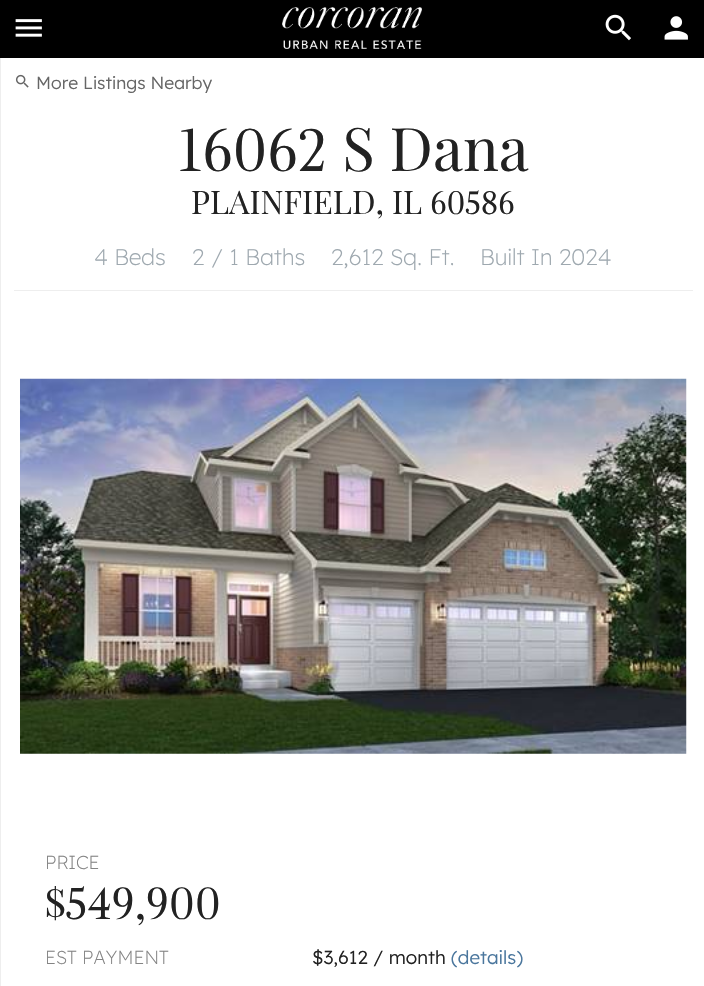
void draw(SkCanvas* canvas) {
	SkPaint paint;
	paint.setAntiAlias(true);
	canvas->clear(0xffffffff);
	paint.setColor(0xff000000);
	canvas->drawRect(SkRect::MakeXYWH(0, 0, 704, 58), paint);
	canvas->drawImageRect(SkImages::DeferredFromEncodedData(SkData::MakeFromFileName("img1.png")), SkRect::MakeXYWH(15, 19, 27, 18), SkSamplingOptions());
	canvas->drawImageRect(SkImages::DeferredFromEncodedData(SkData::MakeFromFileName("img2.png")), SkRect::MakeXYWH(282, 7, 140, 42), SkSamplingOptions());
	canvas->drawImageRect(SkImages::DeferredFromEncodedData(SkData::MakeFromFileName("img3.png")), SkRect::MakeXYWH(605, 14, 26, 27), SkSamplingOptions());
	canvas->drawImageRect(SkImages::DeferredFromEncodedData(SkData::MakeFromFileName("img4.png")), SkRect::MakeXYWH(664, 16, 24, 24), SkSamplingOptions());
	paint.setColor(0xffeeeeee);
	canvas->drawRect(SkRect::MakeXYWH(0, 58, 1, 928), paint);
	canvas->drawImageRect(SkImages::DeferredFromEncodedData(SkData::MakeFromFileName("img5.png")), SkRect::MakeXYWH(15, 74, 14, 14), SkSamplingOptions());
	SkFont f1(fontMgr->matchFamilyStyle("Lexend", SkFontStyle::Normal()), 17.5);
	f1.setSubpixel(true);
	paint.setColor(0xff666666);
	canvas->drawString("More Listings Nearby", 36, 89, f1, paint);
	SkFont f2(fontMgr->matchFamilyStyle("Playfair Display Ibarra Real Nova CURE", SkFontStyle::Normal()), 60);
	f2.setSubpixel(true);
	paint.setColor(0xff222222);
	canvas->drawString("16062 S Dana", 178, 171, f2, paint);
	SkFont f3(fontMgr->matchFamilyStyle("Playfair Display Ibarra Real Nova CURE", SkFontStyle::Normal()), 32.5);
	f3.setSubpixel(true);
	canvas->drawString("PLAINFIELD, IL 60586", 191, 214, f3, paint);
	paint.setColor(0xffeeeeee);
	canvas->drawRect(SkRect::MakeXYWH(14, 290, 679, 1), paint);
	SkFont f4(fontMgr->matchFamilyStyle("Lexend", SkFontStyle(300, SkFontStyle::kNormal_Width, SkFontStyle::kUpright_Slant)), 22.5);
	f4.setSubpixel(true);
	paint.setColor(0xff9ea8af);
	canvas->drawString("4 Beds", 94, 265, f4, paint);
	canvas->drawString("2 / 1 Baths", 192, 265, f4, paint);
	canvas->drawString("2,612 Sq. Ft.", 331, 265, f4, paint);
	canvas->drawString("Built In 2024", 480, 265, f4, paint);
	canvas->drawImageRect(SkImages::DeferredFromEncodedData(SkData::MakeFromFileName("img6.png")), SkRect::MakeXYWH(20, 378, 667, 376), SkSamplingOptions());
	SkFont f5(fontMgr->matchFamilyStyle("Lexend", SkFontStyle(300, SkFontStyle::kNormal_Width, SkFontStyle::kUpright_Slant)), 18.75);
	f5.setSubpixel(true);
	paint.setColor(0xff848484);
	canvas->drawString("PRICE", 45, 869, f5, paint);
	SkFont f6(fontMgr->matchFamilyStyle("Playfair Display Ibarra Real Nova CURE", SkFontStyle::Normal()), 45);
	f6.setSubpixel(true);
	paint.setColor(0xff222222);
	canvas->drawString("$549,900", 45, 919, f6, paint);
	paint.setColor(0xff848484);
	canvas->drawString("EST PAYMENT", 45, 964, f5, paint);
	SkFont f7(fontMgr->matchFamilyStyle("Lexend", SkFontStyle::Normal()), 18.75);
	f7.setSubpixel(true);
	paint.setColor(0xff222222);
	canvas->drawString("$3,612 / month", 312, 964, f7, paint);
	paint.setColor(0xff4a769d);
	canvas->drawString("(details)", 451, 964, f7, paint);
}
